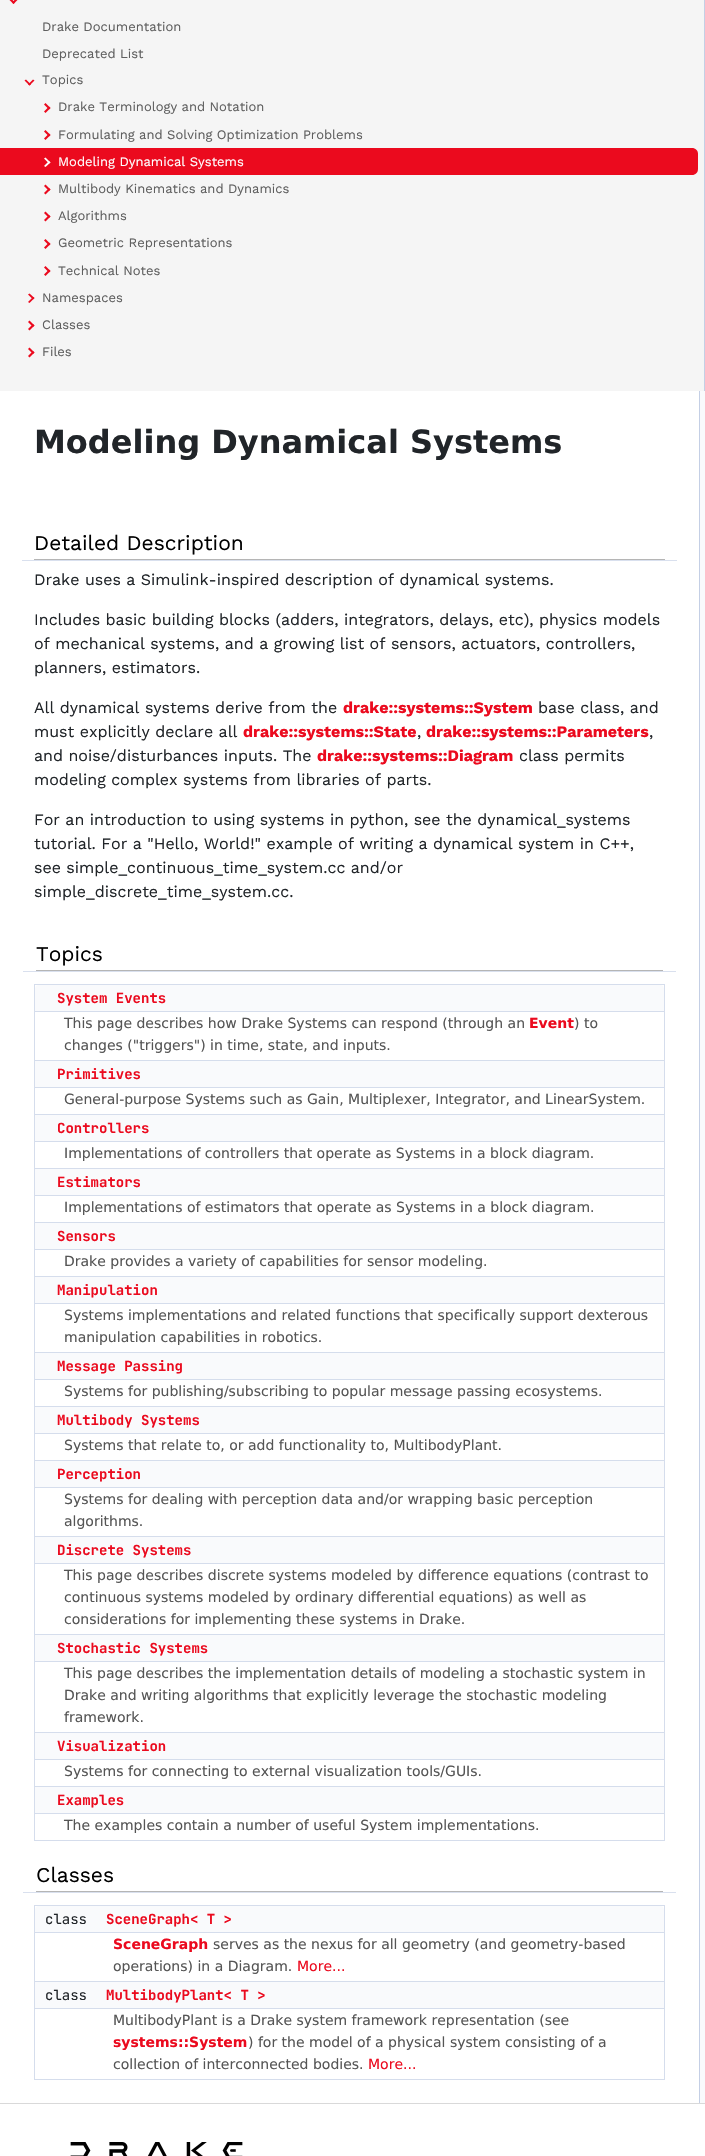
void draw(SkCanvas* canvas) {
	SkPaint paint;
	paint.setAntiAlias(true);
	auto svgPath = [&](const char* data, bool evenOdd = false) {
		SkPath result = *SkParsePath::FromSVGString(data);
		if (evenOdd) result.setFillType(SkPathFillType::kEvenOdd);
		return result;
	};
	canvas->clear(0xffffffff);
	paint.setColor(0xfff5f5f5);
	canvas->drawRect(SkRect::MakeXYWH(0, 0, 704, 391), paint);
	paint.setColor(0xffc4cfe5);
	canvas->drawRect(SkRect::MakeXYWH(704, 0, 1, 391), paint);
	paint.setColor(0xffeb0a1e);
	canvas->drawPath(svgPath("M17-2.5L18.5-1L13.5 4L12 2.5Z"), paint);
	canvas->drawPath(svgPath("M10-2.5L15 2.5L13.5 4L8.5-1Z"), paint);
	SkFont f1(fontMgr->matchFamilyStyle("Work Sans", SkFontStyle::Normal()), 13);
	f1.setSubpixel(true);
	paint.setColor(0xff5f5f5f);
	canvas->drawString("Drake Documentation", 42, 31, f1, paint);
	canvas->drawString("Deprecated List", 42, 58, f1, paint);
	paint.setColor(0xffeb0a1e);
	canvas->drawPath(svgPath("M33 79.5L34.5 80.5L29.5 85.5L28 84.5Z"), paint);
	canvas->drawPath(svgPath("M26 79.5L31 84.5L29.5 85.5L24.5 80.5Z"), paint);
	paint.setColor(0xff5f5f5f);
	canvas->drawString("Topics", 42, 84, f1, paint);
	paint.setColor(0xffeb0a1e);
	canvas->drawPath(svgPath("M44 104.5L45.5 103L50.5 108L49 109.5Z"), paint);
	canvas->drawPath(svgPath("M44 111.5L49 106.5L50.5 108L45.5 113Z"), paint);
	paint.setColor(0xff5f5f5f);
	canvas->drawString("Drake Terminology and Notation", 58, 111, f1, paint);
	paint.setColor(0xffeb0a1e);
	canvas->drawPath(svgPath("M44 131.5L45.5 130L50.5 135L49 136.5Z"), paint);
	canvas->drawPath(svgPath("M44 138.5L49 133.5L50.5 135L45.5 140Z"), paint);
	paint.setColor(0xff5f5f5f);
	canvas->drawString("Formulating and Solving Optimization Problems", 58, 139, f1, paint);
	paint.setColor(0xffeb0a1e);
	canvas->drawPath(svgPath("M0 148H692C695.5 148 698 150.5 698 154V169C698 172.5 695.5 175 692 175H0Z"), paint);
	paint.setColor(0xffffffff);
	canvas->drawPath(svgPath("M44 158.5L45.5 157.5L50.5 162.5L49 163.5Z"), paint);
	canvas->drawPath(svgPath("M44 166L49 161L50.5 162.5L45.5 167Z"), paint);
	canvas->drawString("Modeling Dynamical Systems", 58, 166, f1, paint);
	paint.setColor(0xffeb0a1e);
	canvas->drawPath(svgPath("M44 186L45.5 184.5L50.5 189.5L49 191Z"), paint);
	canvas->drawPath(svgPath("M44 193L49 188L50.5 189.5L45.5 194.5Z"), paint);
	paint.setColor(0xff5f5f5f);
	canvas->drawString("Multibody Kinematics and Dynamics", 58, 193, f1, paint);
	paint.setColor(0xffeb0a1e);
	canvas->drawPath(svgPath("M44 213L45.5 211.5L50.5 216.5L49 218Z"), paint);
	canvas->drawPath(svgPath("M44 220L49 215L50.5 216.5L45.5 221.5Z"), paint);
	paint.setColor(0xff5f5f5f);
	canvas->drawString("Algorithms", 58, 220, f1, paint);
	paint.setColor(0xffeb0a1e);
	canvas->drawPath(svgPath("M44 240.5L45.5 239L50.5 244L49 245.5Z"), paint);
	canvas->drawPath(svgPath("M44 247.5L49 242.5L50.5 244L45.5 249Z"), paint);
	paint.setColor(0xff5f5f5f);
	canvas->drawString("Geometric Representations", 58, 247, f1, paint);
	paint.setColor(0xffeb0a1e);
	canvas->drawPath(svgPath("M44 267.5L45.5 266L50.5 271L49 272.5Z"), paint);
	canvas->drawPath(svgPath("M44 274.5L49 269.5L50.5 271L45.5 276Z"), paint);
	paint.setColor(0xff5f5f5f);
	canvas->drawString("Technical Notes", 58, 275, f1, paint);
	paint.setColor(0xffeb0a1e);
	canvas->drawPath(svgPath("M28 294.5L29.5 293.5L34.5 298L33 299.5Z"), paint);
	canvas->drawPath(svgPath("M28 302L33 297L34.5 298L29.5 303Z"), paint);
	paint.setColor(0xff5f5f5f);
	canvas->drawString("Namespaces", 42, 302, f1, paint);
	paint.setColor(0xffeb0a1e);
	canvas->drawPath(svgPath("M28 322L29.5 320.5L34.5 325.5L33 327Z"), paint);
	canvas->drawPath(svgPath("M28 329L33 324L34.5 325.5L29.5 330.5Z"), paint);
	paint.setColor(0xff5f5f5f);
	canvas->drawString("Classes", 42, 329, f1, paint);
	paint.setColor(0xffeb0a1e);
	canvas->drawPath(svgPath("M28 349L29.5 347.5L34.5 352.5L33 354Z"), paint);
	canvas->drawPath(svgPath("M28 356L33 351L34.5 352.5L29.5 357.5Z"), paint);
	paint.setColor(0xff5f5f5f);
	canvas->drawString("Files", 42, 356, f1, paint);
	SkFont f2(fontMgr->matchFamilyStyle("DejaVu Sans", SkFontStyle::Bold()), 32);
	f2.setSubpixel(true);
	paint.setColor(0xff212529);
	canvas->drawString("Modeling Dynamical Systems", 34, 453, f2, paint);
	paint.setColor(0xffd9e0ee);
	canvas->drawPath(svgPath("M22 523V561H653V560H34V523Z"), paint);
	canvas->drawPath(svgPath("M46 560V561H677V523H665V560Z"), paint);
	paint.setColor(0xffffffff);
	canvas->drawRect(SkRect::MakeXYWH(22, 523, 12, 37), paint);
	canvas->drawRect(SkRect::MakeXYWH(665, 523, 12, 37), paint);
	paint.setColor(0xffb5b5b5);
	canvas->drawRect(SkRect::MakeXYWH(34, 559, 631, 1), paint);
	SkFont f3(fontMgr->matchFamilyStyle("Work Sans", SkFontStyle::Normal()), 21);
	f3.setSubpixel(true);
	paint.setColor(0xff000000);
	canvas->drawString("Detailed Description", 34, 550, f3, paint);
	SkFont f4(fontMgr->matchFamilyStyle("Work Sans", SkFontStyle::Normal()), 16);
	f4.setSubpixel(true);
	paint.setColor(0xff212529);
	canvas->drawString("Drake uses a Simulink-inspired description of dynamical systems.", 34, 585, f4, paint);
	canvas->drawString("Includes basic building blocks (adders, integrators, delays, etc), physics models", 34, 625, f4, paint);
	canvas->drawString("of mechanical systems, and a growing list of sensors, actuators, controllers,", 34, 649, f4, paint);
	canvas->drawString("planners, estimators.", 34, 673, f4, paint);
	canvas->drawString("All dynamical systems derive from the", 34, 713, f4, paint);
	SkFont f5(fontMgr->matchFamilyStyle("Work Sans", SkFontStyle::Bold()), 16);
	f5.setSubpixel(true);
	paint.setColor(0xffeb0a1e);
	canvas->drawString("drake::systems::System", 343, 713, f5, paint);
	paint.setColor(0xff212529);
	canvas->drawString("base class, and", 538, 713, f4, paint);
	canvas->drawString("must explicitly declare all", 34, 737, f4, paint);
	paint.setColor(0xffeb0a1e);
	canvas->drawString("drake::systems::State", 243, 737, f5, paint);
	paint.setColor(0xff212529);
	canvas->drawString(",", 417, 737, f4, paint);
	paint.setColor(0xffeb0a1e);
	canvas->drawString("drake::systems::Parameters", 426, 737, f5, paint);
	paint.setColor(0xff212529);
	canvas->drawString(",", 649, 737, f4, paint);
	canvas->drawString("and noise/disturbances inputs. The", 34, 761, f4, paint);
	paint.setColor(0xffeb0a1e);
	canvas->drawString("drake::systems::Diagram", 317, 761, f5, paint);
	paint.setColor(0xff212529);
	canvas->drawString("class permits", 519, 761, f4, paint);
	canvas->drawString("modeling complex systems from libraries of parts.", 34, 785, f4, paint);
	canvas->drawString("For an introduction to using systems in python, see the dynamical_systems", 34, 825, f4, paint);
	canvas->drawString("tutorial. For a \"Hello, World!\" example of writing a dynamical system in C++,", 34, 849, f4, paint);
	canvas->drawString("see simple_continuous_time_system.cc and/or", 34, 873, f4, paint);
	canvas->drawString("simple_discrete_time_system.cc.", 34, 897, f4, paint);
	paint.setColor(0xffd9e0ee);
	canvas->drawPath(svgPath("M23 934V972H650V971H36V934Z"), paint);
	canvas->drawPath(svgPath("M49 971V972H676V934H663V971Z"), paint);
	paint.setColor(0xffffffff);
	canvas->drawRect(SkRect::MakeXYWH(23, 934, 13, 37), paint);
	canvas->drawRect(SkRect::MakeXYWH(663, 934, 13, 37), paint);
	paint.setColor(0xffb5b5b5);
	canvas->drawRect(SkRect::MakeXYWH(36, 970, 627, 1), paint);
	paint.setColor(0xff000000);
	canvas->drawString("Topics", 36, 961, f3, paint);
	paint.setColor(0xfff9fafc);
	canvas->drawPath(svgPath("M39 985H56V1012H35V989C35 987 37 985 39 985Z"), paint);
	paint.setColor(0xffd5ddec);
	canvas->drawRect(SkRect::MakeXYWH(34, 984, 631, 1), paint);
	paint.setColor(0xfff9fafc);
	canvas->drawPath(svgPath("M56 985H660C662 985 664 987 664 989V1012H56Z"), paint);
	paint.setColor(0xffd5ddec);
	canvas->drawRect(SkRect::MakeXYWH(664, 1011, 1, 830), paint);
	canvas->drawRect(SkRect::MakeXYWH(664, 984, 1, 28), paint);
	canvas->drawRect(SkRect::MakeXYWH(34, 1840, 631, 1), paint);
	canvas->drawRect(SkRect::MakeXYWH(34, 1813, 1, 28), paint);
	canvas->drawRect(SkRect::MakeXYWH(34, 1813, 631, 1), paint);
	canvas->drawRect(SkRect::MakeXYWH(34, 1786, 1, 28), paint);
	canvas->drawRect(SkRect::MakeXYWH(34, 1786, 631, 1), paint);
	canvas->drawRect(SkRect::MakeXYWH(34, 1759, 1, 28), paint);
	canvas->drawRect(SkRect::MakeXYWH(34, 1759, 631, 1), paint);
	canvas->drawRect(SkRect::MakeXYWH(34, 1732, 1, 28), paint);
	canvas->drawRect(SkRect::MakeXYWH(34, 1732, 631, 1), paint);
	canvas->drawRect(SkRect::MakeXYWH(34, 1661, 1, 72), paint);
	canvas->drawRect(SkRect::MakeXYWH(34, 1661, 631, 1), paint);
	canvas->drawRect(SkRect::MakeXYWH(34, 1634, 1, 28), paint);
	canvas->drawRect(SkRect::MakeXYWH(34, 1634, 631, 1), paint);
	canvas->drawRect(SkRect::MakeXYWH(34, 1563, 1, 72), paint);
	canvas->drawRect(SkRect::MakeXYWH(34, 1563, 631, 1), paint);
	canvas->drawRect(SkRect::MakeXYWH(34, 1536, 1, 28), paint);
	canvas->drawRect(SkRect::MakeXYWH(34, 1536, 631, 1), paint);
	canvas->drawRect(SkRect::MakeXYWH(34, 1487, 1, 50), paint);
	canvas->drawRect(SkRect::MakeXYWH(34, 1487, 631, 1), paint);
	canvas->drawRect(SkRect::MakeXYWH(34, 1460, 1, 28), paint);
	canvas->drawRect(SkRect::MakeXYWH(34, 1460, 631, 1), paint);
	canvas->drawRect(SkRect::MakeXYWH(34, 1433, 1, 28), paint);
	canvas->drawRect(SkRect::MakeXYWH(34, 1433, 631, 1), paint);
	canvas->drawRect(SkRect::MakeXYWH(34, 1406, 1, 28), paint);
	canvas->drawRect(SkRect::MakeXYWH(34, 1406, 631, 1), paint);
	canvas->drawRect(SkRect::MakeXYWH(34, 1379, 1, 28), paint);
	canvas->drawRect(SkRect::MakeXYWH(34, 1379, 631, 1), paint);
	canvas->drawRect(SkRect::MakeXYWH(34, 1352, 1, 28), paint);
	canvas->drawRect(SkRect::MakeXYWH(34, 1352, 631, 1), paint);
	canvas->drawRect(SkRect::MakeXYWH(34, 1303, 1, 50), paint);
	canvas->drawRect(SkRect::MakeXYWH(34, 1303, 631, 1), paint);
	canvas->drawRect(SkRect::MakeXYWH(34, 1276, 1, 28), paint);
	canvas->drawRect(SkRect::MakeXYWH(34, 1276, 631, 1), paint);
	canvas->drawRect(SkRect::MakeXYWH(34, 1249, 1, 28), paint);
	canvas->drawRect(SkRect::MakeXYWH(34, 1249, 631, 1), paint);
	canvas->drawRect(SkRect::MakeXYWH(34, 1222, 1, 28), paint);
	canvas->drawRect(SkRect::MakeXYWH(34, 1222, 631, 1), paint);
	canvas->drawRect(SkRect::MakeXYWH(34, 1195, 1, 28), paint);
	canvas->drawRect(SkRect::MakeXYWH(34, 1195, 631, 1), paint);
	canvas->drawRect(SkRect::MakeXYWH(34, 1168, 1, 28), paint);
	canvas->drawRect(SkRect::MakeXYWH(34, 1168, 631, 1), paint);
	canvas->drawRect(SkRect::MakeXYWH(34, 1141, 1, 28), paint);
	canvas->drawRect(SkRect::MakeXYWH(34, 1141, 631, 1), paint);
	canvas->drawRect(SkRect::MakeXYWH(34, 1114, 1, 28), paint);
	canvas->drawRect(SkRect::MakeXYWH(34, 1114, 631, 1), paint);
	canvas->drawRect(SkRect::MakeXYWH(34, 1087, 1, 28), paint);
	canvas->drawRect(SkRect::MakeXYWH(34, 1087, 631, 1), paint);
	canvas->drawRect(SkRect::MakeXYWH(34, 1060, 1, 28), paint);
	canvas->drawRect(SkRect::MakeXYWH(34, 1060, 631, 1), paint);
	canvas->drawRect(SkRect::MakeXYWH(34, 1011, 1, 50), paint);
	canvas->drawRect(SkRect::MakeXYWH(34, 1011, 631, 1), paint);
	canvas->drawRect(SkRect::MakeXYWH(34, 984, 1, 28), paint);
	SkFont f6(fontMgr->matchFamilyStyle("JetBrains Mono", SkFontStyle::Bold()), 14);
	f6.setSubpixel(true);
	paint.setColor(0xffeb0a1e);
	canvas->drawString("System Events", 57, 1003, f6, paint);
	SkFont f7(fontMgr->matchFamilyStyle("DejaVu Sans", SkFontStyle::Normal()), 14);
	f7.setSubpixel(true);
	paint.setColor(0xff555555);
	canvas->drawString("This page describes how Drake Systems can respond (through an", 64, 1028, f7, paint);
	SkFont f8(fontMgr->matchFamilyStyle("DejaVu Sans", SkFontStyle::Bold()), 14);
	f8.setSubpixel(true);
	paint.setColor(0xffeb0a1e);
	canvas->drawString("Event", 529, 1028, f8, paint);
	paint.setColor(0xff555555);
	canvas->drawString(") to", 574, 1028, f7, paint);
	canvas->drawString("changes (\"triggers\") in time, state, and inputs.", 64, 1050, f7, paint);
	paint.setColor(0xfff9fafc);
	canvas->drawRect(SkRect::MakeXYWH(35, 1061, 629, 26), paint);
	paint.setColor(0xffeb0a1e);
	canvas->drawString("Primitives", 57, 1079, f6, paint);
	paint.setColor(0xff555555);
	canvas->drawString("General-purpose Systems such as Gain, Multiplexer, Integrator, and LinearSystem.", 64, 1104, f7, paint);
	paint.setColor(0xfff9fafc);
	canvas->drawRect(SkRect::MakeXYWH(35, 1115, 629, 26), paint);
	paint.setColor(0xffeb0a1e);
	canvas->drawString("Controllers", 57, 1133, f6, paint);
	paint.setColor(0xff555555);
	canvas->drawString("Implementations of controllers that operate as Systems in a block diagram.", 64, 1158, f7, paint);
	paint.setColor(0xfff9fafc);
	canvas->drawRect(SkRect::MakeXYWH(35, 1169, 629, 26), paint);
	paint.setColor(0xffeb0a1e);
	canvas->drawString("Estimators", 57, 1187, f6, paint);
	paint.setColor(0xff555555);
	canvas->drawString("Implementations of estimators that operate as Systems in a block diagram.", 64, 1212, f7, paint);
	paint.setColor(0xfff9fafc);
	canvas->drawRect(SkRect::MakeXYWH(35, 1223, 629, 26), paint);
	paint.setColor(0xffeb0a1e);
	canvas->drawString("Sensors", 57, 1241, f6, paint);
	paint.setColor(0xff555555);
	canvas->drawString("Drake provides a variety of capabilities for sensor modeling.", 64, 1266, f7, paint);
	paint.setColor(0xfff9fafc);
	canvas->drawRect(SkRect::MakeXYWH(35, 1277, 629, 26), paint);
	paint.setColor(0xffeb0a1e);
	canvas->drawString("Manipulation", 57, 1295, f6, paint);
	paint.setColor(0xff555555);
	canvas->drawString("Systems implementations and related functions that specifically support dexterous", 64, 1320, f7, paint);
	canvas->drawString("manipulation capabilities in robotics.", 64, 1342, f7, paint);
	paint.setColor(0xfff9fafc);
	canvas->drawRect(SkRect::MakeXYWH(35, 1353, 629, 26), paint);
	paint.setColor(0xffeb0a1e);
	canvas->drawString("Message Passing", 57, 1371, f6, paint);
	paint.setColor(0xff555555);
	canvas->drawString("Systems for publishing/subscribing to popular message passing ecosystems.", 64, 1396, f7, paint);
	paint.setColor(0xfff9fafc);
	canvas->drawRect(SkRect::MakeXYWH(35, 1407, 629, 26), paint);
	paint.setColor(0xffeb0a1e);
	canvas->drawString("Multibody Systems", 57, 1425, f6, paint);
	paint.setColor(0xff555555);
	canvas->drawString("Systems that relate to, or add functionality to, MultibodyPlant.", 64, 1450, f7, paint);
	paint.setColor(0xfff9fafc);
	canvas->drawRect(SkRect::MakeXYWH(35, 1461, 629, 26), paint);
	paint.setColor(0xffeb0a1e);
	canvas->drawString("Perception", 57, 1479, f6, paint);
	paint.setColor(0xff555555);
	canvas->drawString("Systems for dealing with perception data and/or wrapping basic perception", 64, 1504, f7, paint);
	canvas->drawString("algorithms.", 64, 1526, f7, paint);
	paint.setColor(0xfff9fafc);
	canvas->drawRect(SkRect::MakeXYWH(35, 1537, 629, 26), paint);
	paint.setColor(0xffeb0a1e);
	canvas->drawString("Discrete Systems", 57, 1555, f6, paint);
	paint.setColor(0xff555555);
	canvas->drawString("This page describes discrete systems modeled by difference equations (contrast to", 64, 1580, f7, paint);
	canvas->drawString("continuous systems modeled by ordinary differential equations) as well as", 64, 1602, f7, paint);
	canvas->drawString("considerations for implementing these systems in Drake.", 64, 1624, f7, paint);
	paint.setColor(0xfff9fafc);
	canvas->drawRect(SkRect::MakeXYWH(35, 1635, 629, 26), paint);
	paint.setColor(0xffeb0a1e);
	canvas->drawString("Stochastic Systems", 57, 1653, f6, paint);
	paint.setColor(0xff555555);
	canvas->drawString("This page describes the implementation details of modeling a stochastic system in", 64, 1678, f7, paint);
	canvas->drawString("Drake and writing algorithms that explicitly leverage the stochastic modeling", 64, 1700, f7, paint);
	canvas->drawString("framework.", 64, 1722, f7, paint);
	paint.setColor(0xfff9fafc);
	canvas->drawRect(SkRect::MakeXYWH(35, 1733, 629, 26), paint);
	paint.setColor(0xffeb0a1e);
	canvas->drawString("Visualization", 57, 1751, f6, paint);
	paint.setColor(0xff555555);
	canvas->drawString("Systems for connecting to external visualization tools/GUIs.", 64, 1776, f7, paint);
	paint.setColor(0xfff9fafc);
	canvas->drawRect(SkRect::MakeXYWH(35, 1787, 629, 26), paint);
	paint.setColor(0xffeb0a1e);
	canvas->drawString("Examples", 57, 1805, f6, paint);
	paint.setColor(0xff555555);
	canvas->drawString("The examples contain a number of useful System implementations.", 64, 1830, f7, paint);
	paint.setColor(0xffd9e0ee);
	canvas->drawPath(svgPath("M23 1855V1893H650V1892H36V1855Z"), paint);
	canvas->drawPath(svgPath("M49 1892V1893H676V1855H663V1892Z"), paint);
	paint.setColor(0xffffffff);
	canvas->drawRect(SkRect::MakeXYWH(23, 1855, 13, 37), paint);
	canvas->drawRect(SkRect::MakeXYWH(663, 1855, 13, 37), paint);
	paint.setColor(0xffb5b5b5);
	canvas->drawRect(SkRect::MakeXYWH(36, 1891, 627, 1), paint);
	paint.setColor(0xff000000);
	canvas->drawString("Classes", 36, 1882, f3, paint);
	paint.setColor(0xfff9fafc);
	canvas->drawPath(svgPath("M39 1906H105V1933H35V1910C35 1908 37 1906 39 1906Z"), paint);
	paint.setColor(0xffd5ddec);
	canvas->drawRect(SkRect::MakeXYWH(34, 1905, 631, 1), paint);
	paint.setColor(0xfff9fafc);
	canvas->drawPath(svgPath("M105 1906H660C662 1906 664 1908 664 1910V1933H105Z"), paint);
	paint.setColor(0xffd5ddec);
	canvas->drawRect(SkRect::MakeXYWH(664, 1932, 1, 148), paint);
	canvas->drawRect(SkRect::MakeXYWH(664, 1905, 1, 28), paint);
	canvas->drawRect(SkRect::MakeXYWH(34, 2079, 631, 1), paint);
	canvas->drawRect(SkRect::MakeXYWH(34, 2008, 1, 72), paint);
	canvas->drawRect(SkRect::MakeXYWH(34, 2008, 631, 1), paint);
	canvas->drawRect(SkRect::MakeXYWH(34, 1981, 1, 28), paint);
	canvas->drawRect(SkRect::MakeXYWH(34, 1981, 631, 1), paint);
	canvas->drawRect(SkRect::MakeXYWH(34, 1932, 1, 50), paint);
	canvas->drawRect(SkRect::MakeXYWH(34, 1932, 631, 1), paint);
	canvas->drawRect(SkRect::MakeXYWH(34, 1905, 1, 28), paint);
	SkFont f9(fontMgr->matchFamilyStyle("JetBrains Mono", SkFontStyle::Normal()), 14);
	f9.setSubpixel(true);
	paint.setColor(0xff212529);
	canvas->drawString("class", 45, 1924, f9, paint);
	paint.setColor(0xffeb0a1e);
	canvas->drawString("SceneGraph< T >", 106, 1924, f6, paint);
	canvas->drawString("SceneGraph", 113, 1949, f8, paint);
	paint.setColor(0xff555555);
	canvas->drawString("serves as the nexus for all geometry (and geometry-based", 213, 1949, f7, paint);
	canvas->drawString("operations) in a Diagram.", 113, 1971, f7, paint);
	paint.setColor(0xffeb0a1e);
	canvas->drawString("More...", 297, 1971, f7, paint);
	paint.setColor(0xfff9fafc);
	canvas->drawRect(SkRect::MakeXYWH(35, 1982, 629, 26), paint);
	paint.setColor(0xff212529);
	canvas->drawString("class", 45, 2000, f9, paint);
	paint.setColor(0xffeb0a1e);
	canvas->drawString("MultibodyPlant< T >", 106, 2000, f6, paint);
	paint.setColor(0xff555555);
	canvas->drawString("MultibodyPlant is a Drake system framework representation (see", 113, 2025, f7, paint);
	paint.setColor(0xffeb0a1e);
	canvas->drawString("systems::System", 113, 2047, f8, paint);
	paint.setColor(0xff555555);
	canvas->drawString(") for the model of a physical system consisting of a", 248, 2047, f7, paint);
	canvas->drawString("collection of interconnected bodies.", 113, 2069, f7, paint);
	paint.setColor(0xffeb0a1e);
	canvas->drawString("More...", 368, 2069, f7, paint);
	paint.setColor(0xfff9fafc);
	canvas->drawRect(SkRect::MakeXYWH(700, 391, 5, 1712), paint);
	paint.setColor(0xffc4cfe5);
	canvas->drawRect(SkRect::MakeXYWH(699, 391, 1, 1712), paint);
	paint.setColor(0xffd9d9d9);
	canvas->drawRect(SkRect::MakeXYWH(0, 2103, 705, 1), paint);
	canvas->drawImageRect(SkImages::DeferredFromEncodedData(SkData::MakeFromFileName("img1.png")), SkRect::MakeXYWH(70, 2142, 173, 14), SkSamplingOptions());
}
